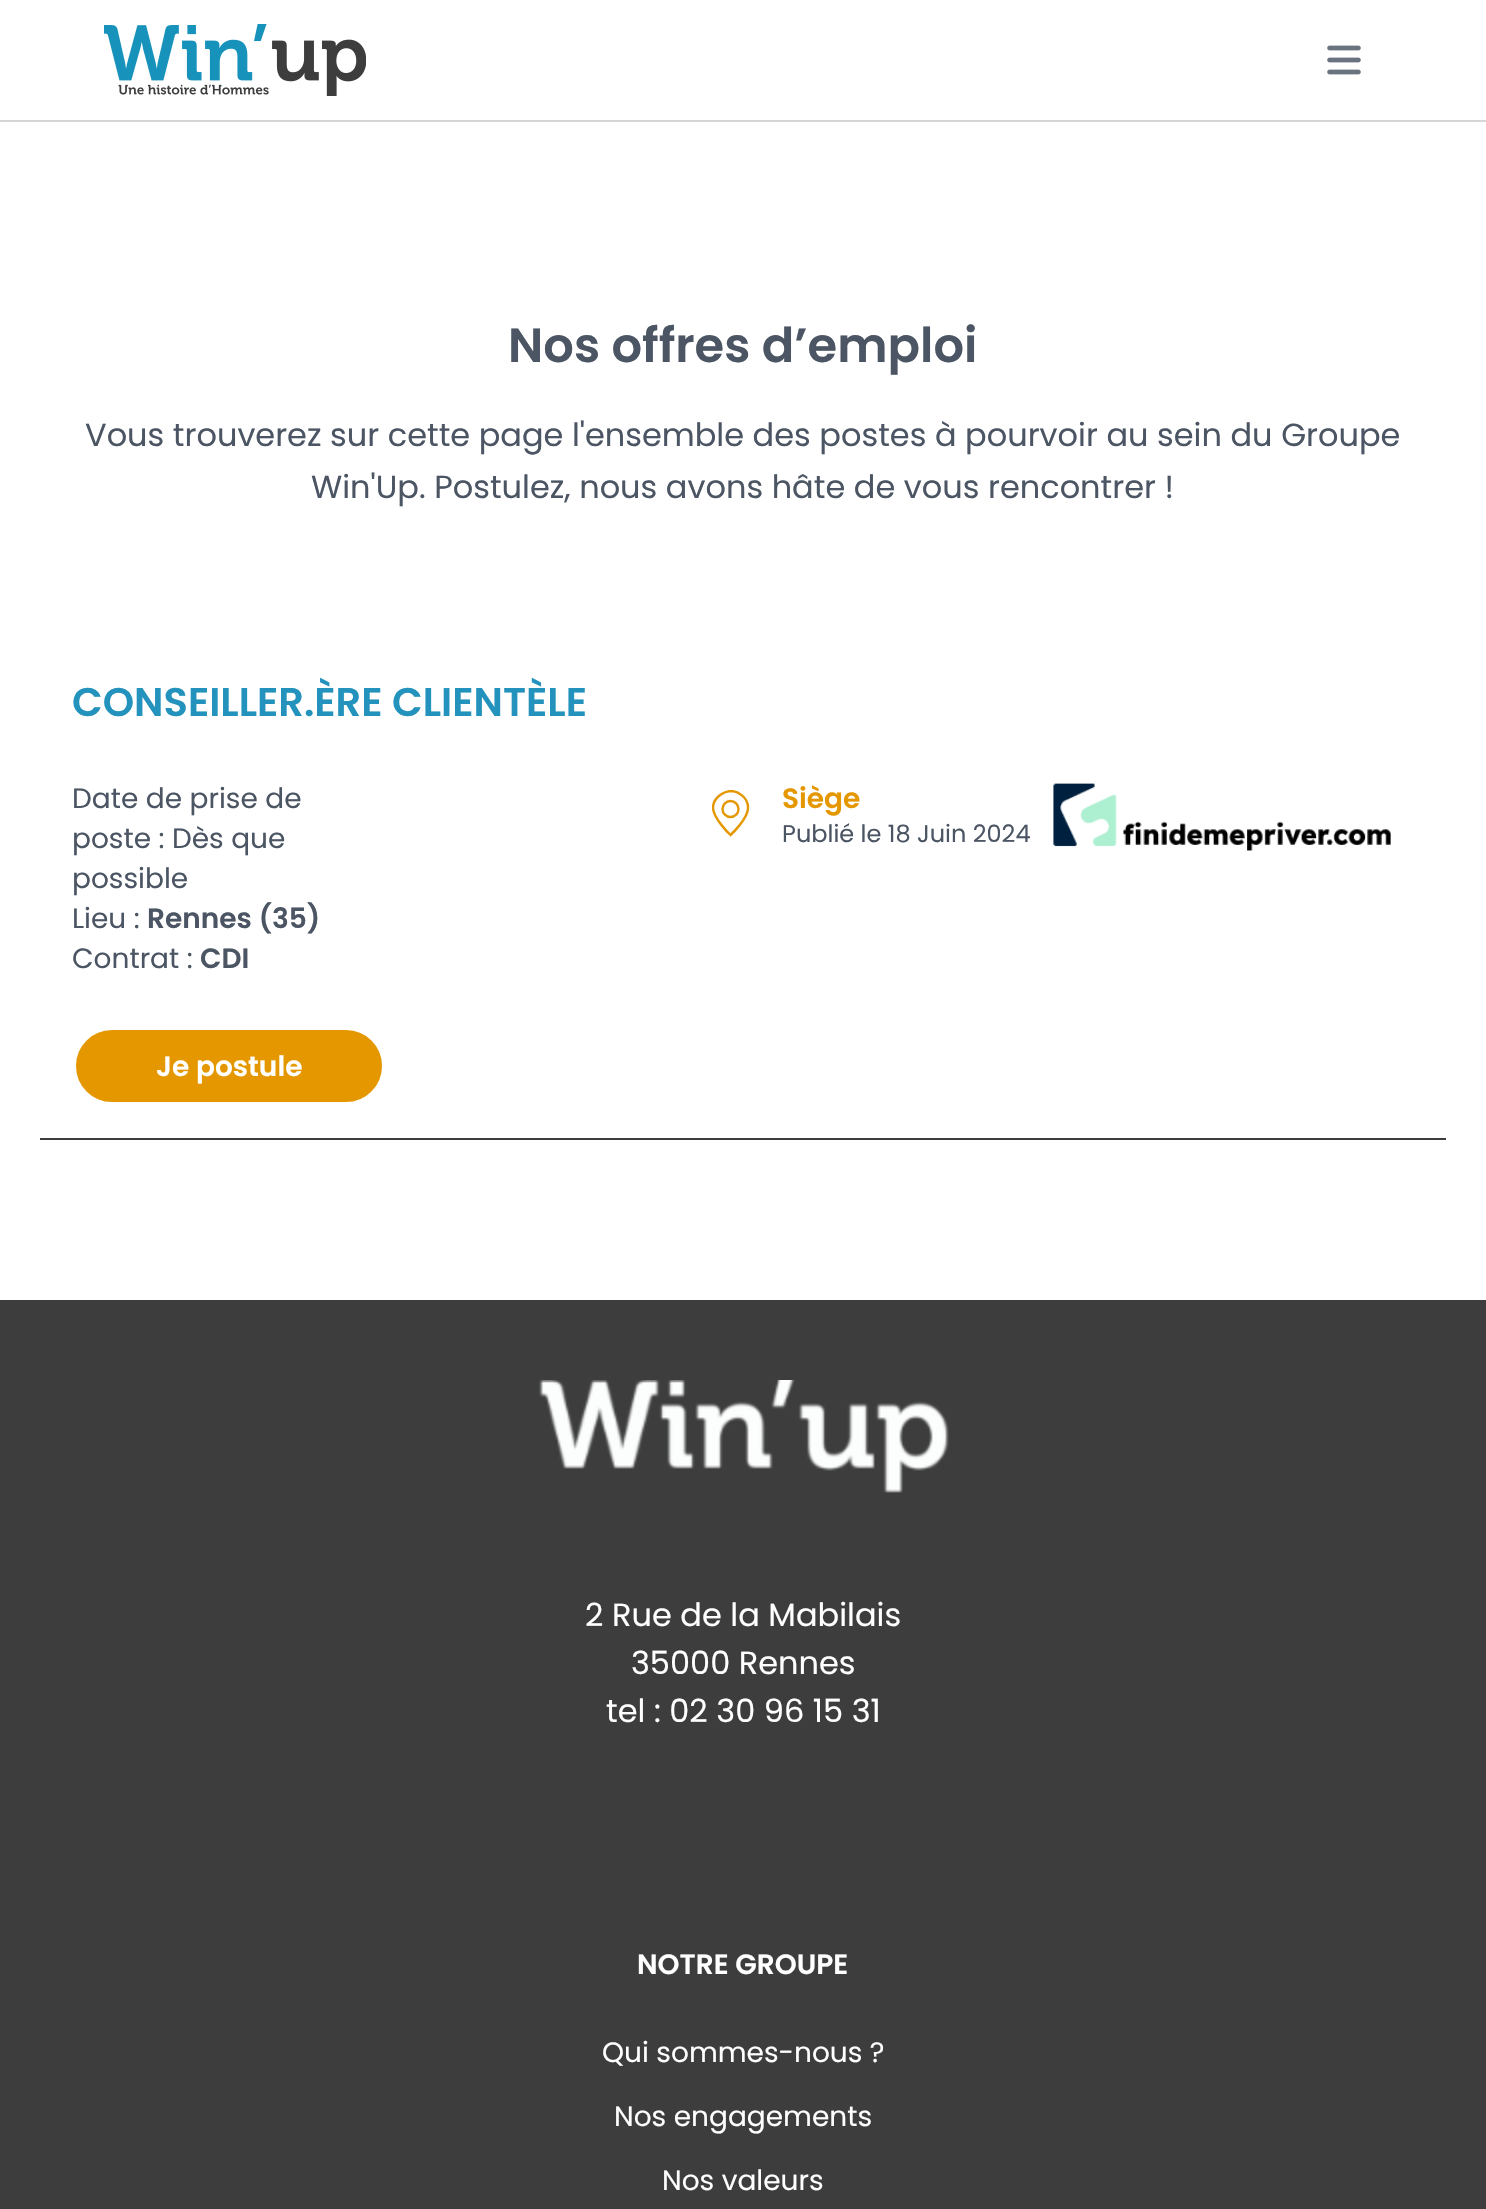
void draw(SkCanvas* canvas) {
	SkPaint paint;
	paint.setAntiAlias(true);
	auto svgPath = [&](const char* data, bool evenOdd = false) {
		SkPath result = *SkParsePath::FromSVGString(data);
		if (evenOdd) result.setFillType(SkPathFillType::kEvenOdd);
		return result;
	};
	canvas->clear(0xffffffff);
	paint.setColor(0xffd7d6d6);
	canvas->drawRect(SkRect::MakeXYWH(0, 120, 1486, 2), paint);
	canvas->drawImageRect(SkImages::DeferredFromEncodedData(SkData::MakeFromFileName("img1.png")), SkRect::MakeXYWH(104, 24, 262, 72), SkSamplingOptions());
	canvas->drawImageRect(SkImages::DeferredFromEncodedData(SkData::MakeFromFileName("img2.png")), SkRect::MakeXYWH(1327, 45, 34, 30), SkSamplingOptions());
	SkFont f1(fontMgr->matchFamilyStyle("Poppins", SkFontStyle(600, SkFontStyle::kNormal_Width, SkFontStyle::kUpright_Slant)), 48);
	f1.setSubpixel(true);
	paint.setColor(0xff4b5563);
	canvas->drawString("Nos offres d’emploi", 508, 362, f1, paint);
	SkFont f2(fontMgr->matchFamilyStyle("Poppins", SkFontStyle::Normal()), 32);
	f2.setSubpixel(true);
	canvas->drawString("Vous trouverez sur cette page l'ensemble des postes à pourvoir au sein du Groupe", 85, 446, f2, paint);
	canvas->drawString("Win'Up. Postulez, nous avons hâte de vous rencontrer !", 311, 498, f2, paint);
	paint.setColor(0xff3d3d3d);
	canvas->drawRect(SkRect::MakeXYWH(40, 1138, 1406, 2), paint);
	SkFont f3(fontMgr->matchFamilyStyle("Poppins", SkFontStyle(600, SkFontStyle::kNormal_Width, SkFontStyle::kUpright_Slant)), 40);
	f3.setSubpixel(true);
	paint.setColor(0xff2392bc);
	canvas->drawString("CONSEILLER.ÈRE CLIENTÈLE", 72, 716, f3, paint);
	SkFont f4(fontMgr->matchFamilyStyle("Poppins", SkFontStyle::Normal()), 28);
	f4.setSubpixel(true);
	paint.setColor(0xff4b5563);
	canvas->drawString("Date de prise de", 72, 808, f4, paint);
	canvas->drawString("poste : Dès que", 72, 848, f4, paint);
	canvas->drawString("possible", 72, 888, f4, paint);
	canvas->drawString("Lieu :", 72, 928, f4, paint);
	SkFont f5(fontMgr->matchFamilyStyle("Poppins", SkFontStyle(600, SkFontStyle::kNormal_Width, SkFontStyle::kUpright_Slant)), 28);
	f5.setSubpixel(true);
	canvas->drawString("Rennes (35)", 147, 928, f5, paint);
	canvas->drawString("Contrat :", 72, 968, f4, paint);
	canvas->drawString("CDI", 200, 968, f5, paint);
	canvas->save();
	canvas->clipRect(SkRect::MakeXYWH(712, 790, 38, 48));
	paint.setStroke(true);
	paint.setStrokeWidth(2.4);
	paint.setColor(0xffe59700);
	canvas->drawPath(svgPath("M730.5 835C730.5 835 713.5 819 713 808C713 797.5 723.5 791.5 730.5 791C738 791 748.5 797.5 748 808C748 819 730.5 835 730.5 835Z"), paint);
	canvas->restore();
	canvas->drawCircle(730.5, 809, 8, paint);
	paint.setStroke(false);
	canvas->drawString("Siège", 782, 808, f5, paint);
	SkFont f6(fontMgr->matchFamilyStyle("Poppins", SkFontStyle::Normal()), 24);
	f6.setSubpixel(true);
	paint.setColor(0xff4b5563);
	canvas->drawString("Publié le 18 Juin 2024", 782, 842, f6, paint);
	canvas->drawImageRect(SkImages::DeferredFromEncodedData(SkData::MakeFromFileName("img3.png")), SkRect::MakeXYWH(1053, 783, 338, 68), SkSamplingOptions());
	paint.setColor(0xffe59700);
	canvas->drawRoundRect(SkRect::MakeXYWH(74, 1028, 310, 76), 38, 38, paint);
	paint.setStroke(true);
	paint.setStrokeWidth(4);
	paint.setColor(0xffffffff);
	canvas->drawRoundRect(SkRect::MakeXYWH(74, 1028, 310, 76), 38, 38, paint);
	paint.setStroke(false);
	canvas->drawString("Je postule", 156, 1076, f5, paint);
	paint.setColor(0xff3d3d3d);
	canvas->drawRect(SkRect::MakeXYWH(0, 1300, 1486, 909), paint);
	canvas->drawImageRect(SkImages::DeferredFromEncodedData(SkData::MakeFromFileName("img4.png")), SkRect::MakeXYWH(539, 1380, 410, 113), SkSamplingOptions());
	paint.setColor(0xffffffff);
	canvas->drawString("2 Rue de la Mabilais", 585, 1626, f2, paint);
	canvas->drawString("35000 Rennes", 631, 1674, f2, paint);
	canvas->drawString("tel : 02 30 96 15 31", 606, 1722, f2, paint);
	canvas->drawString("NOTRE GROUPE", 637, 1974, f5, paint);
	canvas->drawString("Qui sommes-nous ?", 602, 2062, f4, paint);
	canvas->drawString("Nos engagements", 614, 2126, f4, paint);
	canvas->drawString("Nos valeurs", 662, 2190, f4, paint);
}
